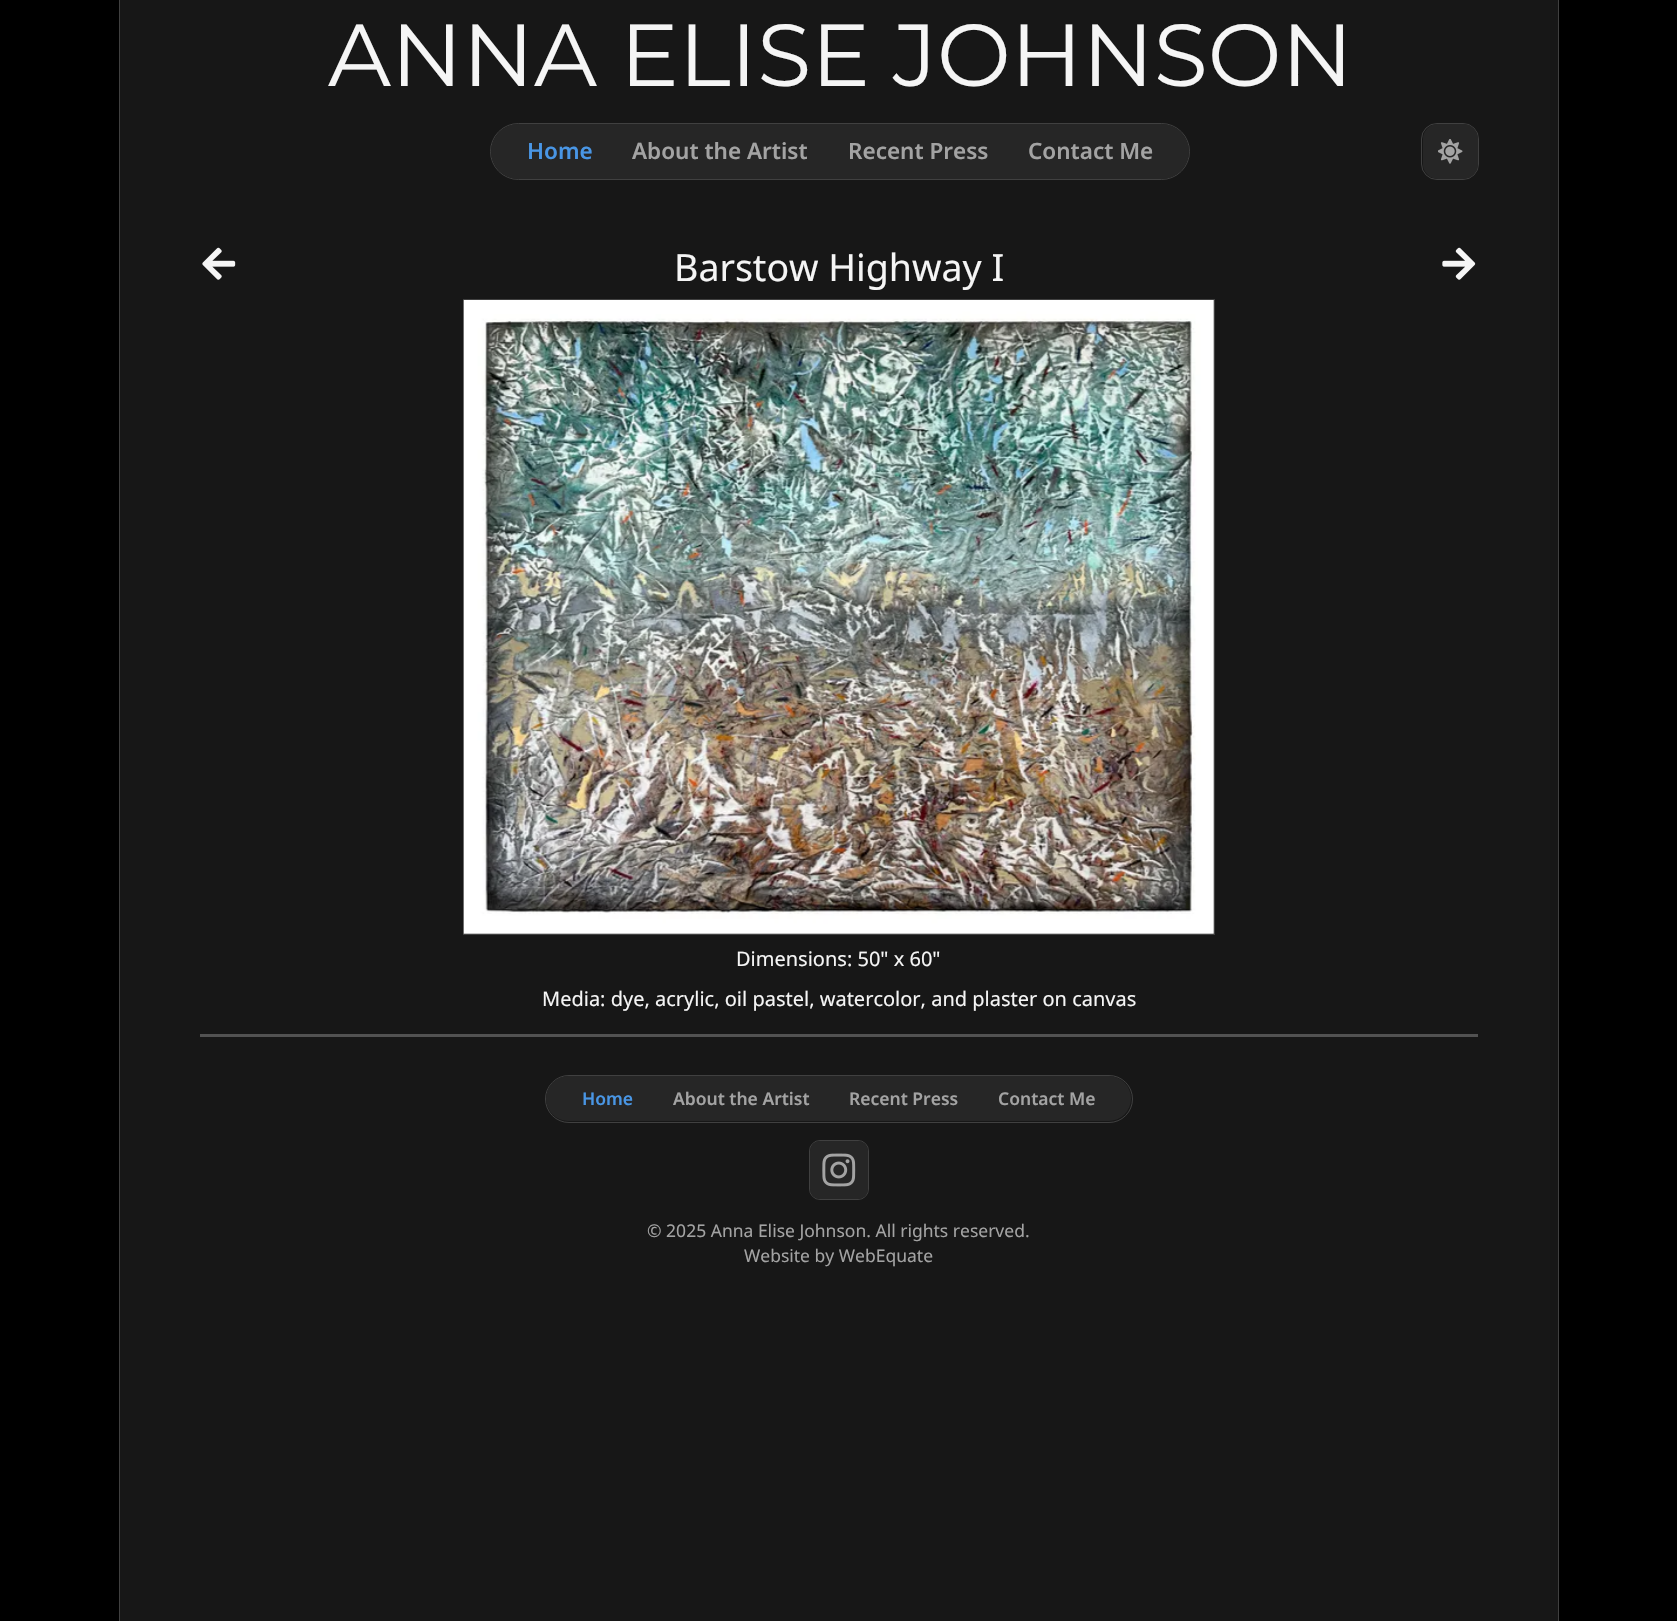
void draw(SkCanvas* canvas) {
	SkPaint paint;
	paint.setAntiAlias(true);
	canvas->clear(0xff000000);
	paint.setColor(0xff171717);
	canvas->drawRect(SkRect::MakeXYWH(120, 0, 1438, 1621), paint);
	paint.setColor(0xff404040);
	canvas->drawRect(SkRect::MakeXYWH(1558, 0, 1, 1621), paint);
	canvas->drawRect(SkRect::MakeXYWH(119, 0, 1, 1621), paint);
	SkFont f1(fontMgr->matchFamilyStyle("Montserrat", SkFontStyle(100, SkFontStyle::kNormal_Width, SkFontStyle::kUpright_Slant)), 87.9);
	f1.setSubpixel(true);
	paint.setColor(0xfff5f5f5);
	canvas->drawString("ANNA ELISE JOHNSON", 328, 86, f1, paint);
	paint.setStroke(true);
	paint.setStrokeWidth(1);
	paint.setColor(0xff404040);
	canvas->drawRoundRect(SkRect::MakeXYWH(490.5, 123.5, 699, 56), 28, 28, paint);
	paint.setStroke(false);
	paint.setColor(0xff262626);
	canvas->drawRoundRect(SkRect::MakeXYWH(491, 124, 698, 55), 27.5, 27.5, paint);
	SkFont f2(fontMgr->matchFamilyStyle("Noto Sans", SkFontStyle(600, SkFontStyle::kNormal_Width, SkFontStyle::kUpright_Slant)), 22.5);
	f2.setSubpixel(true);
	paint.setColor(0xff4996e5);
	canvas->drawString("Home", 527, 159, f2, paint);
	paint.setColor(0xffa3a3a3);
	canvas->drawString("About the Artist", 632, 159, f2, paint);
	canvas->drawString("Recent Press", 848, 159, f2, paint);
	canvas->drawString("Contact Me", 1028, 159, f2, paint);
	paint.setStroke(true);
	paint.setColor(0xff404040);
	canvas->drawRoundRect(SkRect::MakeXYWH(1421.5, 123.5, 57, 56), 15.5, 15.5, paint);
	paint.setStroke(false);
	paint.setColor(0xff262626);
	canvas->drawRoundRect(SkRect::MakeXYWH(1423, 124, 55, 55), 15, 15, paint);
	canvas->drawImageRect(SkImages::DeferredFromEncodedData(SkData::MakeFromFileName("img1.png")), SkRect::MakeXYWH(1438, 139, 25, 25), SkSamplingOptions());
	canvas->drawImageRect(SkImages::DeferredFromEncodedData(SkData::MakeFromFileName("img2.png")), SkRect::MakeXYWH(202, 247, 34, 33), SkSamplingOptions());
	SkFont f3(fontMgr->matchFamilyStyle("Noto Sans", SkFontStyle::Normal()), 37.5);
	f3.setSubpixel(true);
	paint.setColor(0xfff5f5f5);
	canvas->drawString("Barstow Highway I", 674, 281, f3, paint);
	canvas->drawImageRect(SkImages::DeferredFromEncodedData(SkData::MakeFromFileName("img3.png")), SkRect::MakeXYWH(1442, 247, 34, 33), SkSamplingOptions());
	paint.setStroke(true);
	paint.setColor(0xff404040);
	canvas->drawRect(SkRect::MakeXYWH(463.5, 299.5, 751, 635), paint);
	canvas->drawImageRect(SkImages::DeferredFromEncodedData(SkData::MakeFromFileName("img4.png")), SkRect::MakeXYWH(463, 300, 751, 634), SkSamplingOptions());
	SkFont f4(fontMgr->matchFamilyStyle("Noto Sans", SkFontStyle::Normal()), 20);
	f4.setSubpixel(true);
	paint.setStroke(false);
	paint.setColor(0xfff5f5f5);
	canvas->drawString("Dimensions: 50\" x 60\"", 736, 966, f4, paint);
	canvas->drawString("Media: dye, acrylic, oil pastel, watercolor, and plaster on canvas", 542, 1006, f4, paint);
	paint.setColor(0xff525252);
	canvas->drawRect(SkRect::MakeXYWH(200, 1034, 1278, 3), paint);
	paint.setStroke(true);
	paint.setColor(0xff404040);
	canvas->drawRoundRect(SkRect::MakeXYWH(545.5, 1075.5, 587, 47), 23.5, 23.5, paint);
	paint.setStroke(false);
	paint.setColor(0xff262626);
	canvas->drawRoundRect(SkRect::MakeXYWH(546, 1076, 585, 45), 22.5, 22.5, paint);
	SkFont f5(fontMgr->matchFamilyStyle("Noto Sans", SkFontStyle(600, SkFontStyle::kNormal_Width, SkFontStyle::kUpright_Slant)), 17.5);
	f5.setSubpixel(true);
	paint.setColor(0xff4996e5);
	canvas->drawString("Home", 582, 1105, f5, paint);
	paint.setColor(0xffa3a3a3);
	canvas->drawString("About the Artist", 673, 1105, f5, paint);
	canvas->drawString("Recent Press", 849, 1105, f5, paint);
	canvas->drawString("Contact Me", 998, 1105, f5, paint);
	paint.setStroke(true);
	paint.setColor(0xff404040);
	canvas->drawRoundRect(SkRect::MakeXYWH(809.5, 1140.5, 59, 59), 10.5, 10.5, paint);
	paint.setStroke(false);
	paint.setColor(0xff262626);
	canvas->drawRoundRect(SkRect::MakeXYWH(810, 1141, 58, 58), 10, 10, paint);
	canvas->drawImageRect(SkImages::DeferredFromEncodedData(SkData::MakeFromFileName("img5.png")), SkRect::MakeXYWH(822, 1153, 34, 34), SkSamplingOptions());
	SkFont f6(fontMgr->matchFamilyStyle("Noto Sans", SkFontStyle::Normal()), 17.5);
	f6.setSubpixel(true);
	paint.setColor(0xffa3a3a3);
	canvas->drawString("© 2025 Anna Elise Johnson. All rights reserved.", 647, 1237, f6, paint);
	canvas->drawString("Website by WebEquate", 744, 1262, f6, paint);
}
